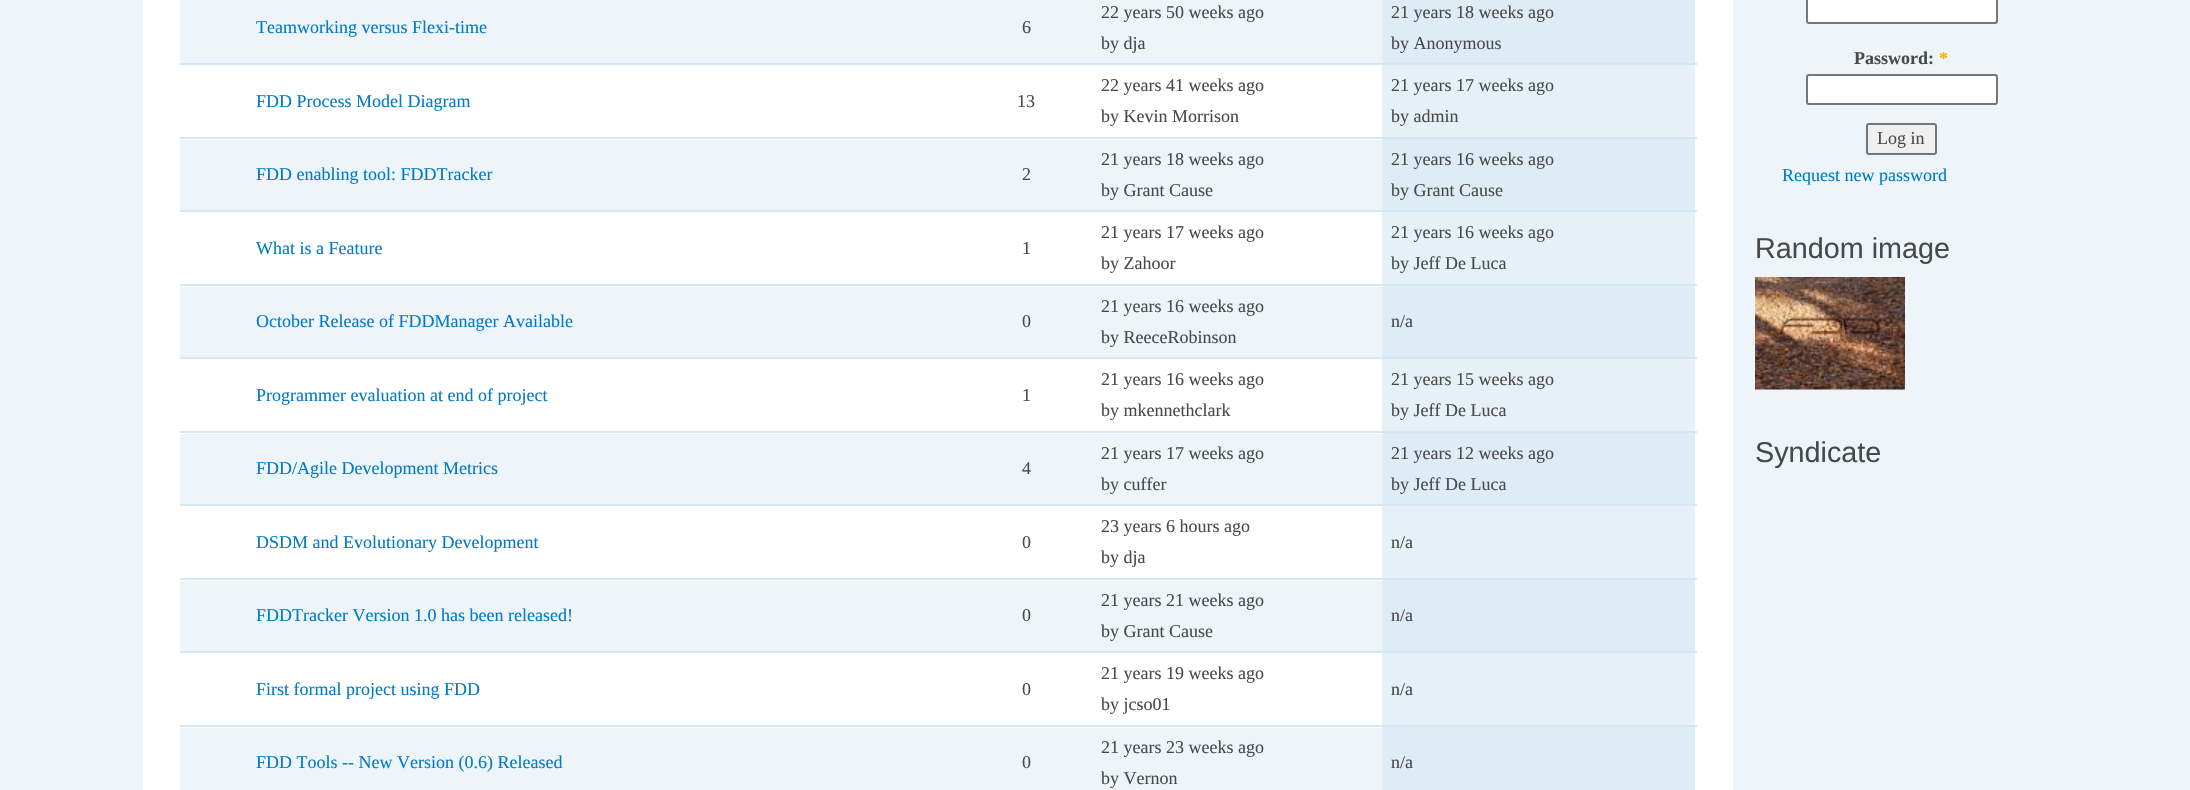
void draw(SkCanvas* canvas) {
	SkPaint paint;
	paint.setAntiAlias(true);
	canvas->clear(0xffedf5fa);
	paint.setColor(0xffffffff);
	canvas->drawRect(SkRect::MakeXYWH(143, 0, 1590, 790), paint);
	paint.setColor(0xffedf5fa);
	canvas->drawRect(SkRect::MakeXYWH(180, 0, 1202, 63), paint);
	SkFont f1(fontMgr->matchFamilyStyle("Liberation Serif", SkFontStyle::Normal()), 18);
	f1.setSubpixel(true);
	paint.setColor(0xff027ac6);
	canvas->drawString("Teamworking versus Flexi-time", 256, 33, f1, paint);
	paint.setColor(0xff494949);
	canvas->drawString("6", 1022, 33, f1, paint);
	canvas->drawString("22 years 50 weeks ago", 1101, 18, f1, paint);
	canvas->drawString("by dja", 1101, 49, f1, paint);
	paint.setColor(0xffddecf5);
	canvas->drawRect(SkRect::MakeXYWH(1382, 0, 313, 63), paint);
	paint.setColor(0xff494949);
	canvas->drawString("21 years 18 weeks ago", 1391, 18, f1, paint);
	canvas->drawString("by Anonymous", 1391, 49, f1, paint);
	paint.setColor(0xffd3e7f4);
	canvas->drawRect(SkRect::MakeXYWH(180, 63, 1517, 2), paint);
	paint.setColor(0xff027ac6);
	canvas->drawString("FDD Process Model Diagram", 256, 107, f1, paint);
	paint.setColor(0xff494949);
	canvas->drawString("13", 1017, 107, f1, paint);
	canvas->drawString("22 years 41 weeks ago", 1101, 91, f1, paint);
	canvas->drawString("by Kevin Morrison", 1101, 122, f1, paint);
	paint.setColor(0xffe6f1f7);
	canvas->drawRect(SkRect::MakeXYWH(1382, 65, 313, 72), paint);
	paint.setColor(0xff494949);
	canvas->drawString("21 years 17 weeks ago", 1391, 91, f1, paint);
	canvas->drawString("by admin", 1391, 122, f1, paint);
	paint.setColor(0xffedf5fa);
	canvas->drawRect(SkRect::MakeXYWH(180, 140, 1202, 70), paint);
	paint.setColor(0xffd3e7f4);
	canvas->drawRect(SkRect::MakeXYWH(180, 137, 1517, 2), paint);
	paint.setColor(0xff027ac6);
	canvas->drawString("FDD enabling tool: FDDTracker", 256, 180, f1, paint);
	paint.setColor(0xff494949);
	canvas->drawString("2", 1022, 180, f1, paint);
	canvas->drawString("21 years 18 weeks ago", 1101, 165, f1, paint);
	canvas->drawString("by Grant Cause", 1101, 196, f1, paint);
	paint.setColor(0xffddecf5);
	canvas->drawRect(SkRect::MakeXYWH(1382, 139, 313, 71), paint);
	paint.setColor(0xff494949);
	canvas->drawString("21 years 16 weeks ago", 1391, 165, f1, paint);
	canvas->drawString("by Grant Cause", 1391, 196, f1, paint);
	paint.setColor(0xffd3e7f4);
	canvas->drawRect(SkRect::MakeXYWH(180, 210, 1517, 2), paint);
	paint.setColor(0xff027ac6);
	canvas->drawString("What is a Feature", 256, 254, f1, paint);
	paint.setColor(0xff494949);
	canvas->drawString("1", 1022, 254, f1, paint);
	canvas->drawString("21 years 17 weeks ago", 1101, 238, f1, paint);
	canvas->drawString("by Zahoor", 1101, 269, f1, paint);
	paint.setColor(0xffe6f1f7);
	canvas->drawRect(SkRect::MakeXYWH(1382, 212, 313, 72), paint);
	paint.setColor(0xff494949);
	canvas->drawString("21 years 16 weeks ago", 1391, 238, f1, paint);
	canvas->drawString("by Jeff De Luca", 1391, 269, f1, paint);
	paint.setColor(0xffedf5fa);
	canvas->drawRect(SkRect::MakeXYWH(180, 287, 1202, 70), paint);
	paint.setColor(0xffd3e7f4);
	canvas->drawRect(SkRect::MakeXYWH(180, 284, 1517, 2), paint);
	paint.setColor(0xff027ac6);
	canvas->drawString("October Release of FDDManager Available", 256, 327, f1, paint);
	paint.setColor(0xff494949);
	canvas->drawString("0", 1022, 327, f1, paint);
	canvas->drawString("21 years 16 weeks ago", 1101, 312, f1, paint);
	canvas->drawString("by ReeceRobinson", 1101, 343, f1, paint);
	paint.setColor(0xffddecf5);
	canvas->drawRect(SkRect::MakeXYWH(1382, 286, 313, 71), paint);
	paint.setColor(0xff494949);
	canvas->drawString("n/a", 1391, 327, f1, paint);
	paint.setColor(0xffd3e7f4);
	canvas->drawRect(SkRect::MakeXYWH(180, 357, 1517, 2), paint);
	paint.setColor(0xff027ac6);
	canvas->drawString("Programmer evaluation at end of project", 256, 401, f1, paint);
	paint.setColor(0xff494949);
	canvas->drawString("1", 1022, 401, f1, paint);
	canvas->drawString("21 years 16 weeks ago", 1101, 385, f1, paint);
	canvas->drawString("by mkennethclark", 1101, 416, f1, paint);
	paint.setColor(0xffe6f1f7);
	canvas->drawRect(SkRect::MakeXYWH(1382, 359, 313, 72), paint);
	paint.setColor(0xff494949);
	canvas->drawString("21 years 15 weeks ago", 1391, 385, f1, paint);
	canvas->drawString("by Jeff De Luca", 1391, 416, f1, paint);
	paint.setColor(0xffedf5fa);
	canvas->drawRect(SkRect::MakeXYWH(180, 434, 1202, 70), paint);
	paint.setColor(0xffd3e7f4);
	canvas->drawRect(SkRect::MakeXYWH(180, 431, 1517, 2), paint);
	paint.setColor(0xff027ac6);
	canvas->drawString("FDD/Agile Development Metrics", 256, 474, f1, paint);
	paint.setColor(0xff494949);
	canvas->drawString("4", 1022, 474, f1, paint);
	canvas->drawString("21 years 17 weeks ago", 1101, 459, f1, paint);
	canvas->drawString("by cuffer", 1101, 490, f1, paint);
	paint.setColor(0xffddecf5);
	canvas->drawRect(SkRect::MakeXYWH(1382, 433, 313, 71), paint);
	paint.setColor(0xff494949);
	canvas->drawString("21 years 12 weeks ago", 1391, 459, f1, paint);
	canvas->drawString("by Jeff De Luca", 1391, 490, f1, paint);
	paint.setColor(0xffd3e7f4);
	canvas->drawRect(SkRect::MakeXYWH(180, 504, 1517, 2), paint);
	paint.setColor(0xff027ac6);
	canvas->drawString("DSDM and Evolutionary Development", 256, 548, f1, paint);
	paint.setColor(0xff494949);
	canvas->drawString("0", 1022, 548, f1, paint);
	canvas->drawString("23 years 6 hours ago", 1101, 532, f1, paint);
	canvas->drawString("by dja", 1101, 563, f1, paint);
	paint.setColor(0xffe6f1f7);
	canvas->drawRect(SkRect::MakeXYWH(1382, 506, 313, 72), paint);
	paint.setColor(0xff494949);
	canvas->drawString("n/a", 1391, 548, f1, paint);
	paint.setColor(0xffedf5fa);
	canvas->drawRect(SkRect::MakeXYWH(180, 581, 1202, 70), paint);
	paint.setColor(0xffd3e7f4);
	canvas->drawRect(SkRect::MakeXYWH(180, 578, 1517, 2), paint);
	paint.setColor(0xff027ac6);
	canvas->drawString("FDDTracker Version 1.0 has been released!", 256, 621, f1, paint);
	paint.setColor(0xff494949);
	canvas->drawString("0", 1022, 621, f1, paint);
	canvas->drawString("21 years 21 weeks ago", 1101, 606, f1, paint);
	canvas->drawString("by Grant Cause", 1101, 637, f1, paint);
	paint.setColor(0xffddecf5);
	canvas->drawRect(SkRect::MakeXYWH(1382, 580, 313, 71), paint);
	paint.setColor(0xff494949);
	canvas->drawString("n/a", 1391, 621, f1, paint);
	paint.setColor(0xffd3e7f4);
	canvas->drawRect(SkRect::MakeXYWH(180, 651, 1517, 2), paint);
	paint.setColor(0xff027ac6);
	canvas->drawString("First formal project using FDD", 256, 695, f1, paint);
	paint.setColor(0xff494949);
	canvas->drawString("0", 1022, 695, f1, paint);
	canvas->drawString("21 years 19 weeks ago", 1101, 679, f1, paint);
	canvas->drawString("by jcso01", 1101, 710, f1, paint);
	paint.setColor(0xffe6f1f7);
	canvas->drawRect(SkRect::MakeXYWH(1382, 653, 313, 72), paint);
	paint.setColor(0xff494949);
	canvas->drawString("n/a", 1391, 695, f1, paint);
	paint.setColor(0xffedf5fa);
	canvas->drawRect(SkRect::MakeXYWH(180, 728, 1202, 62), paint);
	paint.setColor(0xffd3e7f4);
	canvas->drawRect(SkRect::MakeXYWH(180, 725, 1517, 2), paint);
	paint.setColor(0xff027ac6);
	canvas->drawString("FDD Tools -- New Version (0.6) Released", 256, 768, f1, paint);
	paint.setColor(0xff494949);
	canvas->drawString("0", 1022, 768, f1, paint);
	canvas->drawString("21 years 23 weeks ago", 1101, 753, f1, paint);
	canvas->drawString("by Vernon", 1101, 784, f1, paint);
	paint.setColor(0xffddecf5);
	canvas->drawRect(SkRect::MakeXYWH(1382, 727, 313, 63), paint);
	paint.setColor(0xff494949);
	canvas->drawString("n/a", 1391, 768, f1, paint);
	paint.setColor(0xffffffff);
	canvas->drawRoundRect(SkRect::MakeXYWH(1807, -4, 190, 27), 2, 2, paint);
	paint.setStroke(true);
	paint.setStrokeWidth(2);
	paint.setColor(0xff767676);
	canvas->drawRoundRect(SkRect::MakeXYWH(1807, -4, 190, 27), 2, 2, paint);
	SkFont f2(fontMgr->matchFamilyStyle("Liberation Serif", SkFontStyle::Bold()), 18);
	f2.setSubpixel(true);
	paint.setStroke(false);
	paint.setColor(0xff494949);
	canvas->drawString("Password:", 1854, 64, f2, paint);
	paint.setColor(0xffffae00);
	canvas->drawString("*", 1939, 64, f2, paint);
	paint.setColor(0xffffffff);
	canvas->drawRoundRect(SkRect::MakeXYWH(1807, 75, 190, 29), 2, 2, paint);
	paint.setStroke(true);
	paint.setColor(0xff767676);
	canvas->drawRoundRect(SkRect::MakeXYWH(1807, 75, 190, 29), 2, 2, paint);
	paint.setStroke(false);
	paint.setColor(0xffefefef);
	canvas->drawRoundRect(SkRect::MakeXYWH(1867, 124, 69, 30), 2, 2, paint);
	paint.setStroke(true);
	paint.setColor(0xff767676);
	canvas->drawRoundRect(SkRect::MakeXYWH(1867, 124, 69, 30), 2, 2, paint);
	paint.setStroke(false);
	paint.setColor(0xff494949);
	canvas->drawString("Log in", 1877, 144, f1, paint);
	paint.setColor(0xff027ac6);
	canvas->drawString("Request new password", 1782, 181, f1, paint);
	SkFont f3(fontMgr->matchFamilyStyle("Liberation Sans", SkFontStyle::Normal()), 28.75);
	f3.setSubpixel(true);
	paint.setColor(0xff494949);
	canvas->drawString("Random image", 1755, 258, f3, paint);
	canvas->drawImageRect(SkImages::DeferredFromEncodedData(SkData::MakeFromFileName("img1.png")), SkRect::MakeXYWH(1755, 277, 150, 113), SkSamplingOptions());
	canvas->drawString("Syndicate", 1755, 462, f3, paint);
}
